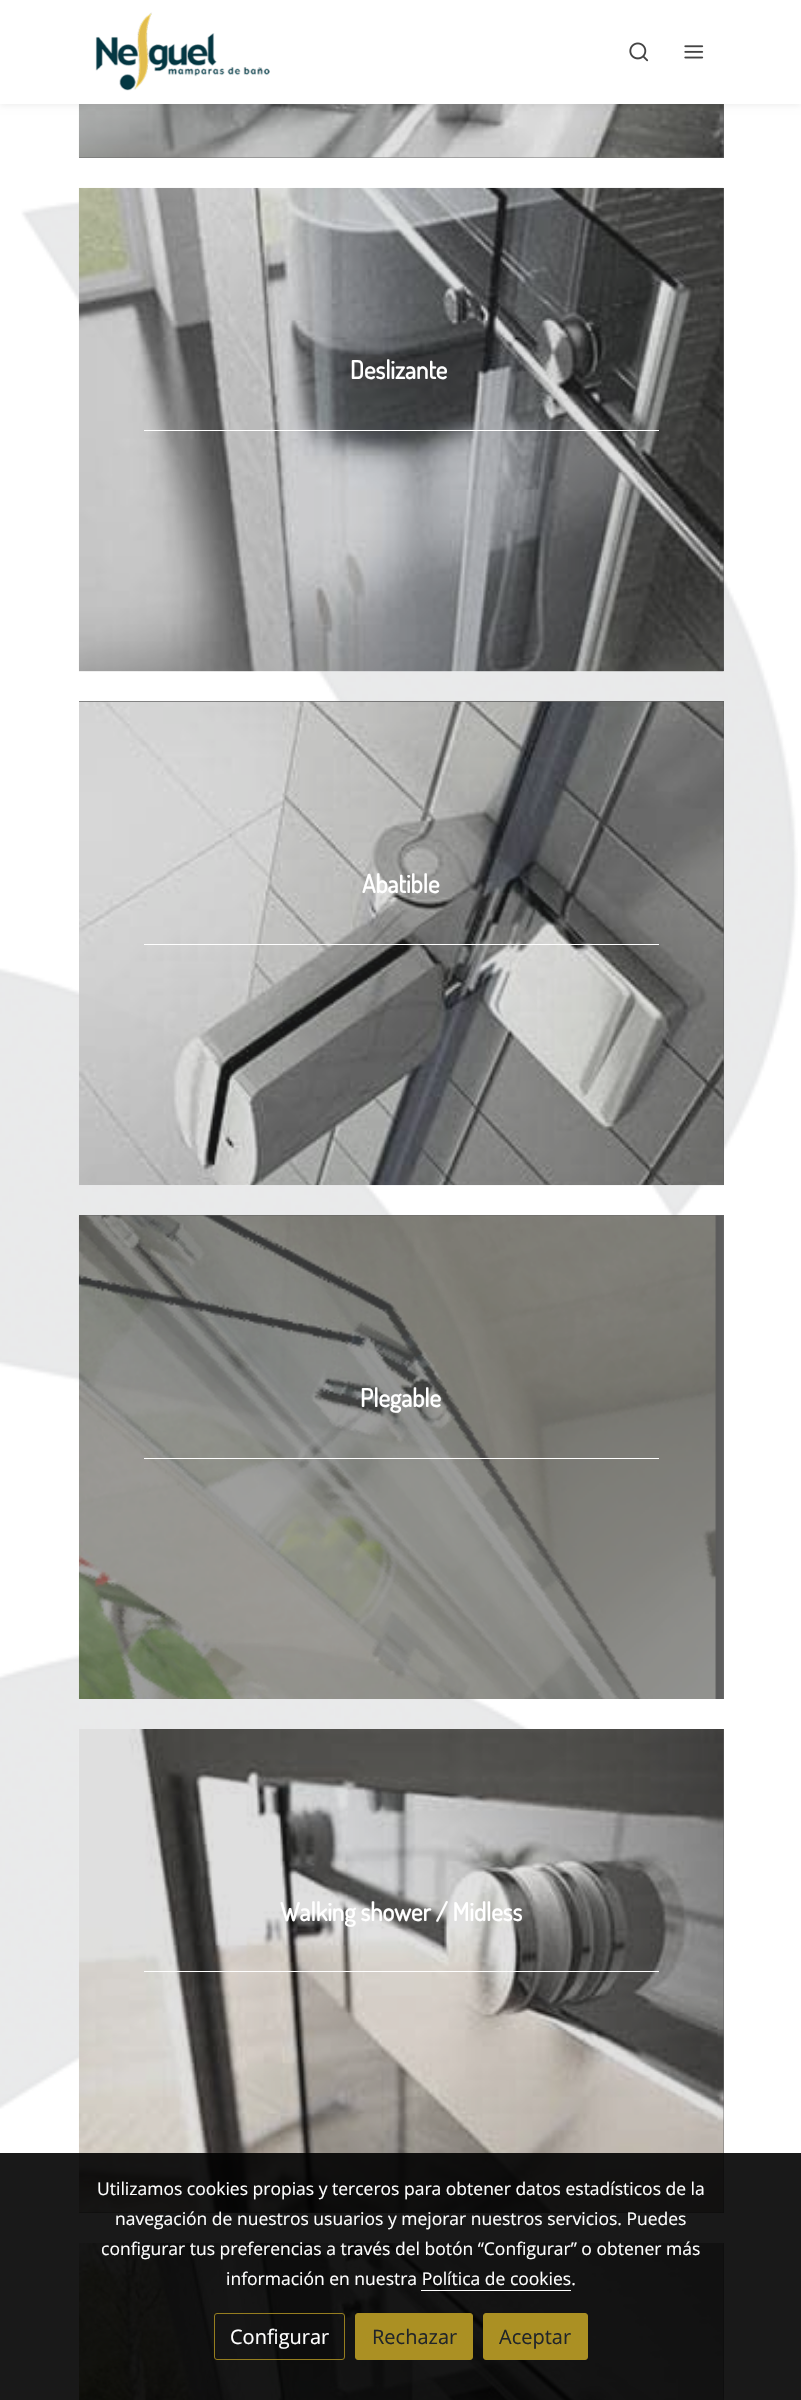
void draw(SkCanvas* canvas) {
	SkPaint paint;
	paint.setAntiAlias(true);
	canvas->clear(0xffffffff);
	paint.setColor(0xff666666);
	canvas->drawRect(SkRect::MakeXYWH(79, 104, 645, 54), paint);
	canvas->drawImageRect(SkImages::DeferredFromEncodedData(SkData::MakeFromFileName("img5.png")), SkRect::MakeXYWH(78, 104, 646, 54), SkSamplingOptions());
	paint.setColor(0x0f000000);
	paint.setMaskFilter(SkMaskFilter::MakeBlur(kNormal_SkBlurStyle, 3));
	canvas->drawRect(SkRect::MakeXYWH(0, 3, 801, 103), paint);
	paint.setMaskFilter(nullptr);
	paint.setColor(0xffffffff);
	canvas->drawRect(SkRect::MakeXYWH(0, 0, 801, 104), paint);
	canvas->drawImageRect(SkImages::DeferredFromEncodedData(SkData::MakeFromFileName("img1.png")), SkRect::MakeXYWH(95, 12, 175, 79), SkSamplingOptions());
	canvas->drawImageRect(SkImages::DeferredFromEncodedData(SkData::MakeFromFileName("img2.png")), SkRect::MakeXYWH(629, 42, 20, 20), SkSamplingOptions());
	canvas->drawImageRect(SkImages::DeferredFromEncodedData(SkData::MakeFromFileName("img3.png")), SkRect::MakeXYWH(684, 45, 20, 14), SkSamplingOptions());
	canvas->drawImageRect(SkImages::DeferredFromEncodedData(SkData::MakeFromFileName("img4.png")), SkRect::MakeXYWH(0, 197, 798, 1912), SkSamplingOptions());
	paint.setColor(0x99000000);
	canvas->drawRect(SkRect::MakeXYWH(79, 188, 645, 483), paint);
	canvas->drawImageRect(SkImages::DeferredFromEncodedData(SkData::MakeFromFileName("img6.png")), SkRect::MakeXYWH(78, 187, 646, 485), SkSamplingOptions());
	SkFont f1(fontMgr->matchFamilyStyle("Dosis", SkFontStyle::Bold()), 25);
	f1.setSubpixel(true);
	paint.setColor(0xffffffff);
	canvas->drawString("Deslizante", 350, 379, f1, paint);
	canvas->drawRect(SkRect::MakeXYWH(144, 430, 515, 1), paint);
	paint.setColor(0x99000000);
	canvas->drawRect(SkRect::MakeXYWH(79, 701, 645, 484), paint);
	canvas->drawImageRect(SkImages::DeferredFromEncodedData(SkData::MakeFromFileName("img7.png")), SkRect::MakeXYWH(79, 701, 645, 485), SkSamplingOptions());
	paint.setColor(0xffffffff);
	canvas->drawString("Abatible", 362, 893, f1, paint);
	canvas->drawRect(SkRect::MakeXYWH(144, 944, 515, 1), paint);
	paint.setColor(0x99000000);
	canvas->drawRect(SkRect::MakeXYWH(79, 1215, 645, 484), paint);
	canvas->drawImageRect(SkImages::DeferredFromEncodedData(SkData::MakeFromFileName("img8.png")), SkRect::MakeXYWH(78, 1215, 645, 484), SkSamplingOptions());
	paint.setColor(0xffffffff);
	canvas->drawString("Plegable", 360, 1407, f1, paint);
	canvas->drawRect(SkRect::MakeXYWH(144, 1458, 515, 1), paint);
	paint.setColor(0x99000000);
	canvas->drawRect(SkRect::MakeXYWH(79, 1729, 645, 484), paint);
	canvas->drawImageRect(SkImages::DeferredFromEncodedData(SkData::MakeFromFileName("img9.png")), SkRect::MakeXYWH(78, 1729, 646, 484), SkSamplingOptions());
	paint.setColor(0xffffffff);
	canvas->drawString("Walking shower / Midless", 280, 1921, f1, paint);
	canvas->drawRect(SkRect::MakeXYWH(144, 1971, 515, 1), paint);
	paint.setColor(0xff666666);
	canvas->drawRect(SkRect::MakeXYWH(79, 2243, 645, 157), paint);
	canvas->drawImageRect(SkImages::DeferredFromEncodedData(SkData::MakeFromFileName("img10.png")), SkRect::MakeXYWH(78, 2242, 646, 158), SkSamplingOptions());
	paint.setColor(0xe6000000);
	canvas->drawRect(SkRect::MakeXYWH(0, 2153, 801, 247), paint);
	SkFont f2(fontMgr->matchFamilyStyle("Open Sans", SkFontStyle::Normal()), 17.5);
	f2.setSubpixel(true);
	paint.setColor(0xffffffff);
	canvas->drawString("Utilizamos cookies propias y terceros para obtener datos estadísticos de la", 97, 2195, f2, paint);
	canvas->drawString("navegación de nuestros usuarios y mejorar nuestros servicios. Puedes", 115, 2225, f2, paint);
	canvas->drawString("configurar tus preferencias a través del botón “Configurar” o obtener más", 101, 2255, f2, paint);
	canvas->drawString("información en nuestra Política de cookies.", 226, 2285, f2, paint);
	canvas->drawRect(SkRect::MakeXYWH(421, 2290, 150, 1), paint);
	paint.setStroke(true);
	paint.setStrokeWidth(1);
	paint.setColor(0xff967e1f);
	canvas->drawRoundRect(SkRect::MakeXYWH(214.5, 2313.5, 130, 46), 2.5, 2.5, paint);
	SkFont f3(fontMgr->matchFamilyStyle("Open Sans", SkFontStyle::Normal()), 20);
	f3.setSubpixel(true);
	paint.setStroke(false);
	paint.setColor(0xffffffff);
	canvas->drawString("Configurar", 230, 2344, f3, paint);
	paint.setColor(0xffab9023);
	canvas->drawRoundRect(SkRect::MakeXYWH(355.5, 2313.5, 117, 46), 2.5, 2.5, paint);
	paint.setStroke(true);
	canvas->drawRoundRect(SkRect::MakeXYWH(355.5, 2313.5, 117, 46), 2.5, 2.5, paint);
	paint.setStroke(false);
	paint.setColor(0xff212529);
	canvas->drawString("Rechazar", 372, 2344, f3, paint);
	paint.setColor(0xffab9023);
	canvas->drawRoundRect(SkRect::MakeXYWH(483.5, 2313.5, 104, 46), 2.5, 2.5, paint);
	paint.setStroke(true);
	canvas->drawRoundRect(SkRect::MakeXYWH(483.5, 2313.5, 104, 46), 2.5, 2.5, paint);
	paint.setStroke(false);
	paint.setColor(0xff212529);
	canvas->drawString("Aceptar", 499, 2344, f3, paint);
}
